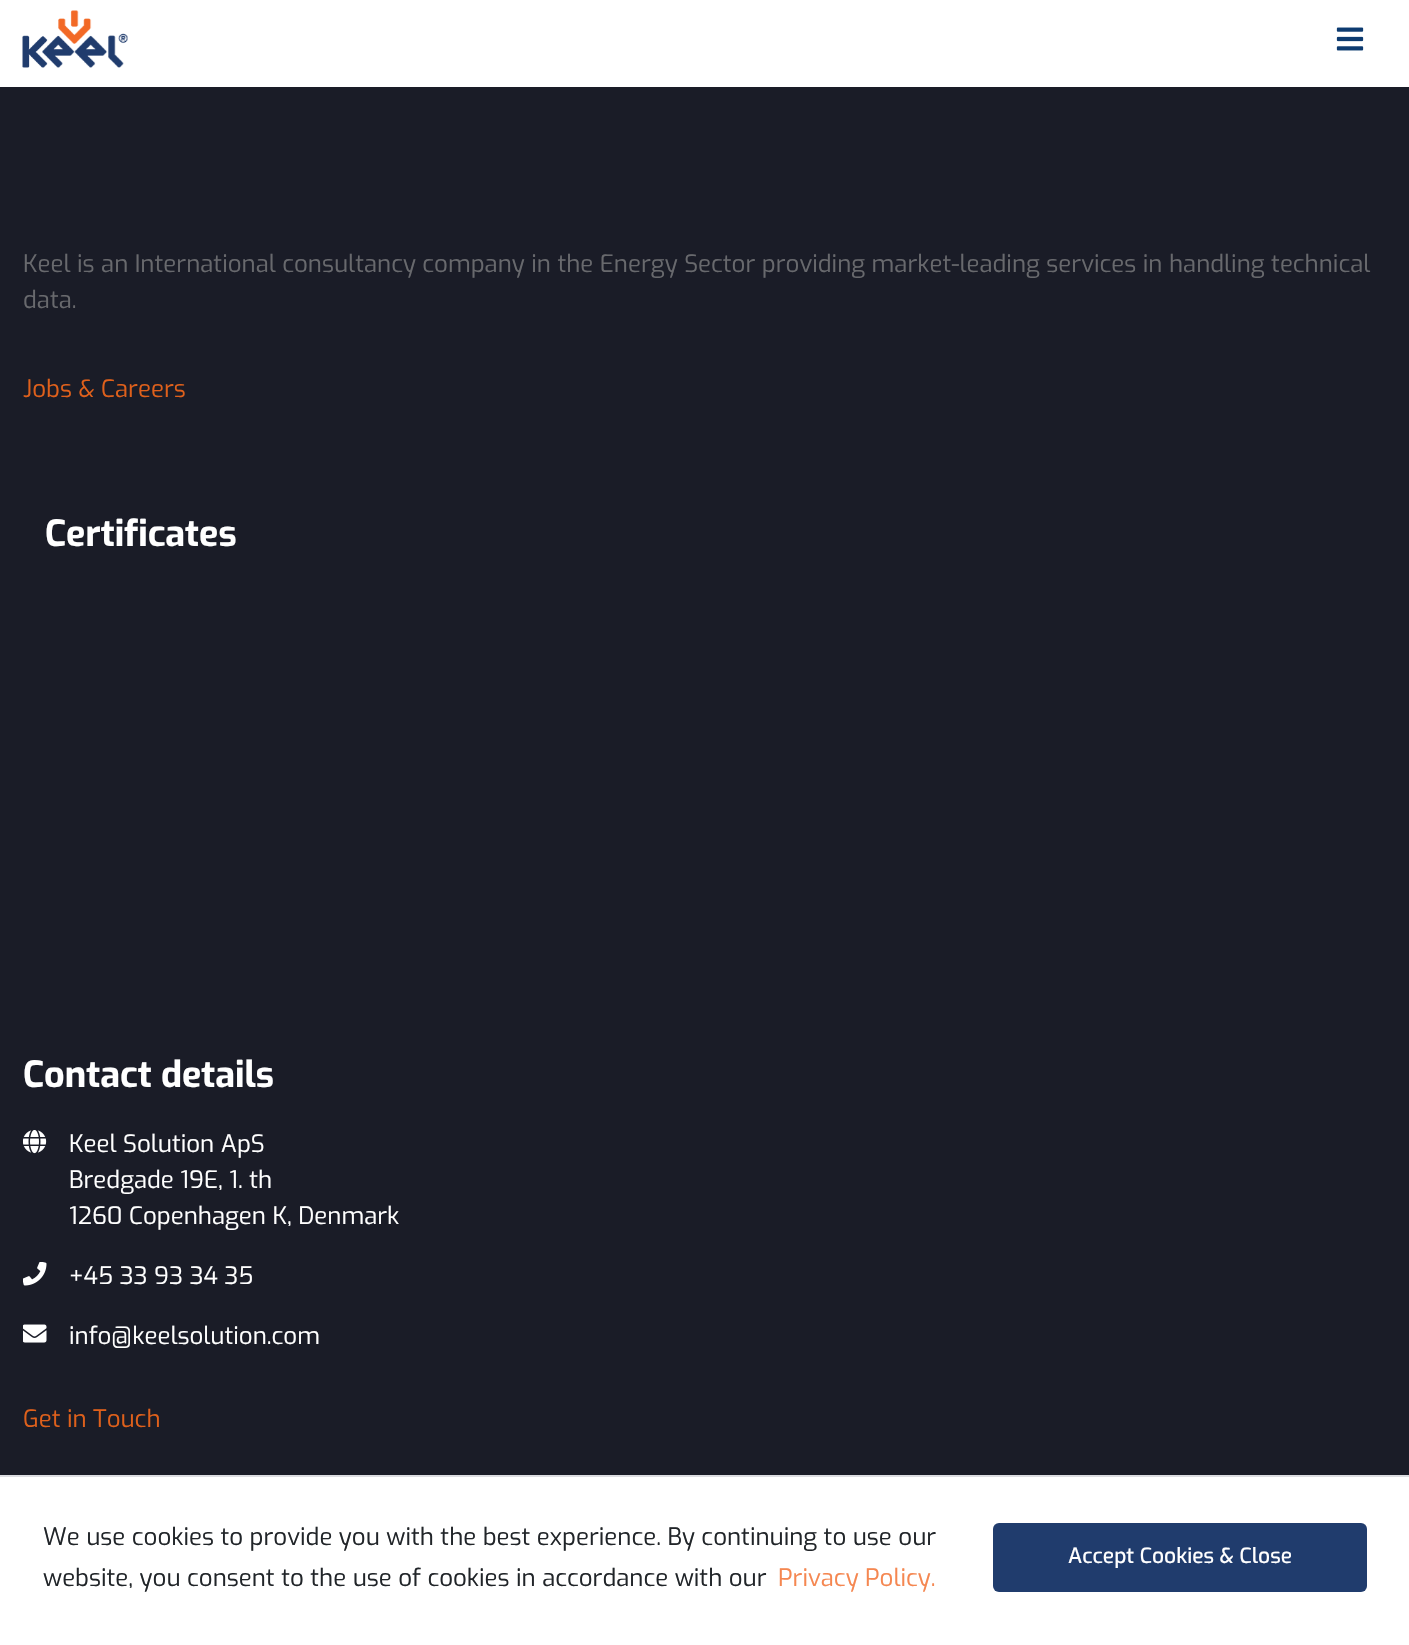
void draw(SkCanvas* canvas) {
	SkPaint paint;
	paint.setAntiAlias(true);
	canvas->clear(0xff1a1c27);
	paint.setColor(0xffffffff);
	canvas->drawRect(SkRect::MakeXYWH(0, 0, 1409, 87), paint);
	canvas->drawImageRect(SkImages::DeferredFromEncodedData(SkData::MakeFromFileName("img1.png")), SkRect::MakeXYWH(22, 10, 106, 58), SkSamplingOptions());
	canvas->drawImageRect(SkImages::DeferredFromEncodedData(SkData::MakeFromFileName("img2.png")), SkRect::MakeXYWH(1336, 27, 28, 24), SkSamplingOptions());
	SkFont f1(fontMgr->matchFamilyStyle("Exo", SkFontStyle::Normal()), 24);
	f1.setSubpixel(true);
	paint.setColor(0xff68696d);
	canvas->drawString("Keel is an International consultancy company in the Energy Sector providing market-leading services in handling technical", 23, 272, f1, paint);
	canvas->drawString("data.", 23, 308, f1, paint);
	paint.setColor(0xffdf601b);
	canvas->drawString("Jobs & Careers", 23, 397, f1, paint);
	SkFont f2(fontMgr->matchFamilyStyle("Exo", SkFontStyle::Bold()), 36);
	f2.setSubpixel(true);
	paint.setColor(0xffffffff);
	canvas->drawString("Certificates", 45, 546, f2, paint);
	canvas->drawString("Contact details", 23, 1087, f2, paint);
	canvas->drawImageRect(SkImages::DeferredFromEncodedData(SkData::MakeFromFileName("img3.png")), SkRect::MakeXYWH(23, 1130, 24, 24), SkSamplingOptions());
	canvas->drawString("Keel Solution ApS", 69, 1152, f1, paint);
	canvas->drawString("Bredgade 19E, 1. th", 69, 1188, f1, paint);
	canvas->drawString("1260 Copenhagen K, Denmark", 69, 1224, f1, paint);
	canvas->drawImageRect(SkImages::DeferredFromEncodedData(SkData::MakeFromFileName("img4.png")), SkRect::MakeXYWH(23, 1262, 24, 24), SkSamplingOptions());
	canvas->drawString("+45 33 93 34 35", 69, 1284, f1, paint);
	canvas->drawImageRect(SkImages::DeferredFromEncodedData(SkData::MakeFromFileName("img5.png")), SkRect::MakeXYWH(23, 1324, 24, 19), SkSamplingOptions());
	canvas->drawString("info@keelsolution.com", 69, 1344, f1, paint);
	paint.setColor(0xffdf601b);
	canvas->drawString("Get in Touch", 23, 1427, f1, paint);
	paint.setColor(0xffffffff);
	canvas->drawRect(SkRect::MakeXYWH(0, 1477, 1409, 168), paint);
	paint.setColor(0xffdcdde1);
	canvas->drawRect(SkRect::MakeXYWH(0, 1475, 1409, 2), paint);
	paint.setColor(0xff212529);
	canvas->drawString("We use cookies to provide you with the best experience. By continuing to use our", 43, 1545, f1, paint);
	canvas->drawString("website, you consent to the use of cookies in accordance with our", 43, 1586, f1, paint);
	paint.setColor(0xfff58751);
	canvas->drawString("Privacy Policy.", 778, 1586, f1, paint);
	paint.setColor(0xff203c6d);
	canvas->drawRoundRect(SkRect::MakeXYWH(993, 1523, 374, 69), 6, 6, paint);
	SkFont f3(fontMgr->matchFamilyStyle("Exo", SkFontStyle(500, SkFontStyle::kNormal_Width, SkFontStyle::kUpright_Slant)), 21);
	f3.setSubpixel(true);
	paint.setColor(0xffffffff);
	canvas->drawString("Accept Cookies & Close", 1068, 1563, f3, paint);
}
